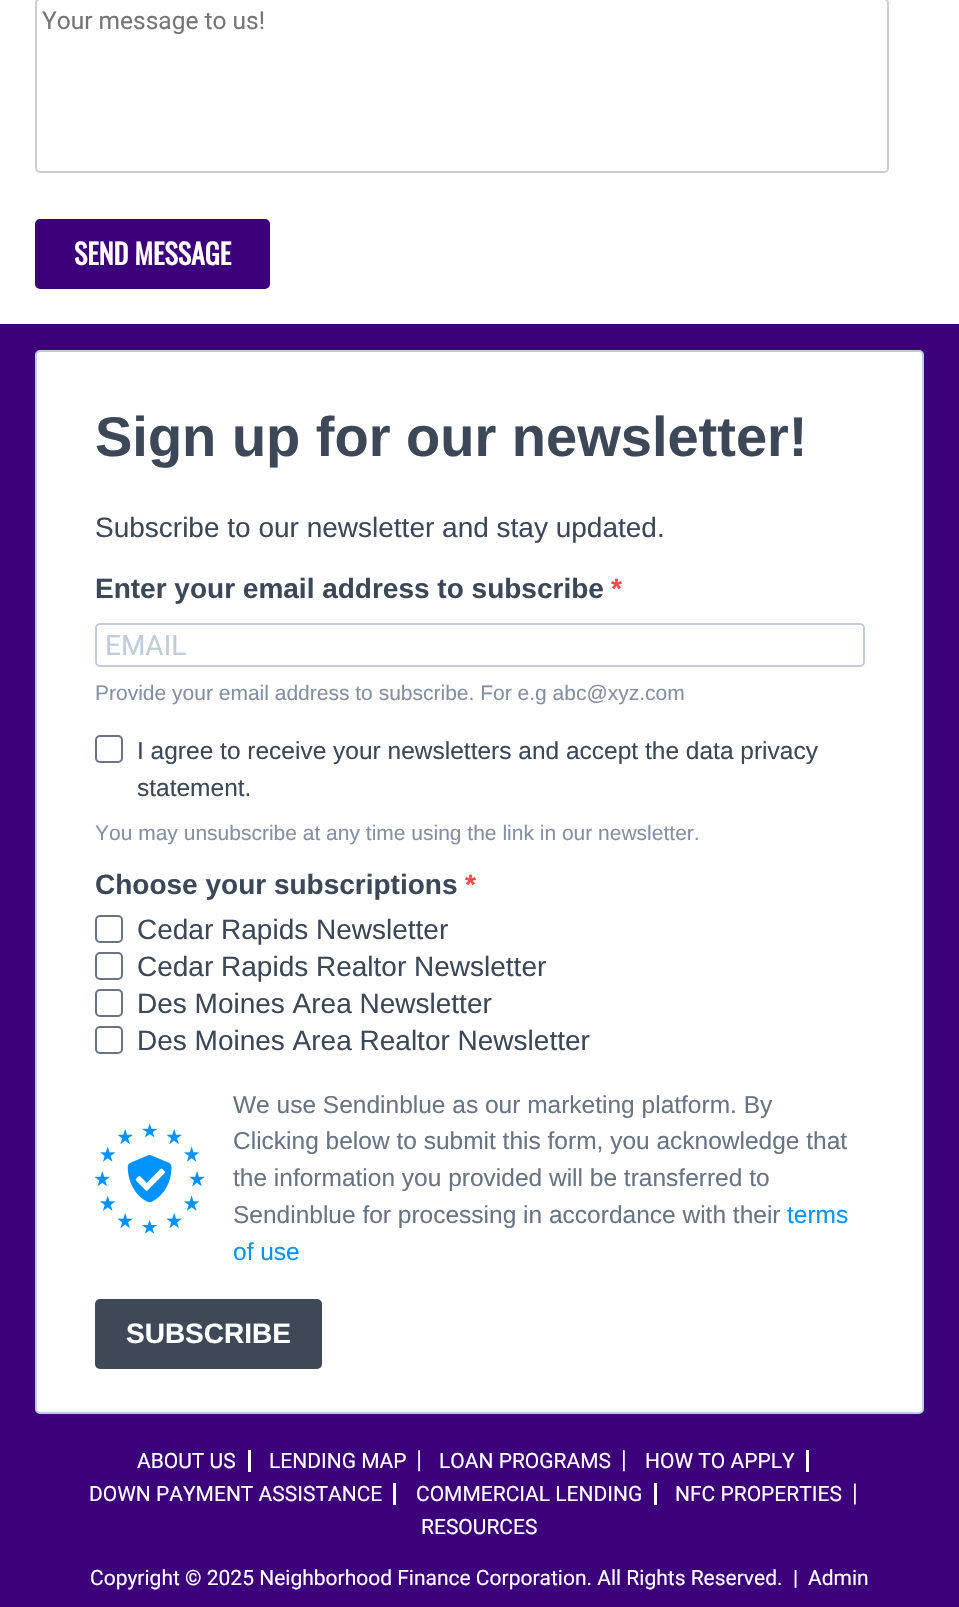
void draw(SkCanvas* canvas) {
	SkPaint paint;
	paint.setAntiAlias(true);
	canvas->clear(0xffffffff);
	paint.setStroke(true);
	paint.setStrokeWidth(2);
	paint.setColor(0xffcccccc);
	canvas->drawRoundRect(SkRect::MakeXYWH(36, -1, 852, 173), 4, 4, paint);
	SkFont f1(fontMgr->matchFamilyStyle("Roboto", SkFontStyle::Normal()), 24.5);
	f1.setSubpixel(true);
	paint.setStroke(false);
	paint.setColor(0xff757575);
	canvas->drawString("Your message to us!", 42, 29, f1, paint);
	paint.setColor(0xff3c007a);
	canvas->drawRoundRect(SkRect::MakeXYWH(37, 221, 231, 66), 3, 3, paint);
	paint.setStroke(true);
	paint.setStrokeWidth(4);
	canvas->drawRoundRect(SkRect::MakeXYWH(37, 221, 231, 66), 3, 3, paint);
	SkFont f2(fontMgr->matchFamilyStyle("Oswald", SkFontStyle::Bold()), 28);
	f2.setSubpixel(true);
	paint.setStroke(false);
	paint.setColor(0xffffffff);
	canvas->drawString("SEND MESSAGE", 74, 265, f2, paint);
	paint.setColor(0xff3c007a);
	canvas->drawRect(SkRect::MakeXYWH(0, 324, 959, 1283), paint);
	paint.setColor(0xffffffff);
	canvas->drawRoundRect(SkRect::MakeXYWH(36, 351, 887, 1062), 4, 4, paint);
	paint.setStroke(true);
	paint.setStrokeWidth(2);
	paint.setColor(0xffc0ccd9);
	canvas->drawRoundRect(SkRect::MakeXYWH(36, 351, 887, 1062), 4, 4, paint);
	SkFont f3(fontMgr->matchFamilyStyle("Liberation Sans", SkFontStyle::Bold()), 56);
	f3.setSubpixel(true);
	paint.setStroke(false);
	paint.setColor(0xff3c4858);
	canvas->drawString("Sign up for our newsletter!", 95, 456, f3, paint);
	SkFont f4(fontMgr->matchFamilyStyle("Liberation Sans", SkFontStyle::Normal()), 28);
	f4.setSubpixel(true);
	canvas->drawString("Subscribe to our newsletter and stay updated.", 95, 537, f4, paint);
	SkFont f5(fontMgr->matchFamilyStyle("Liberation Sans", SkFontStyle::Bold()), 28);
	f5.setSubpixel(true);
	canvas->drawString("Enter your email address to subscribe", 95, 598, f5, paint);
	paint.setColor(0xffff4949);
	canvas->drawString("*", 611, 598, f5, paint);
	paint.setStroke(true);
	paint.setColor(0xffc0ccda);
	canvas->drawRoundRect(SkRect::MakeXYWH(96, 624, 768, 42), 4, 4, paint);
	SkFont f6(fontMgr->matchFamilyStyle("Roboto", SkFontStyle::Normal()), 28);
	f6.setSubpixel(true);
	paint.setStroke(false);
	canvas->drawString("EMAIL", 105, 655, f6, paint);
	SkFont f7(fontMgr->matchFamilyStyle("Liberation Sans", SkFontStyle::Normal()), 21);
	f7.setSubpixel(true);
	paint.setColor(0xff8390a4);
	canvas->drawString("Provide your email address to subscribe. For e.g abc@xyz.com", 95, 700, f7, paint);
	paint.setStroke(true);
	paint.setColor(0xff687484);
	canvas->drawRoundRect(SkRect::MakeXYWH(96, 736, 26, 26), 4, 4, paint);
	SkFont f8(fontMgr->matchFamilyStyle("Liberation Sans", SkFontStyle::Normal()), 24.5);
	f8.setSubpixel(true);
	paint.setStroke(false);
	paint.setColor(0xff3c4858);
	canvas->drawString("I agree to receive your newsletters and accept the data privacy", 137, 759, f8, paint);
	canvas->drawString("statement.", 137, 796, f8, paint);
	paint.setColor(0xff8390a4);
	canvas->drawString("You may unsubscribe at any time using the link in our newsletter.", 95, 840, f7, paint);
	paint.setColor(0xff3c4858);
	canvas->drawString("Choose your subscriptions", 95, 894, f5, paint);
	paint.setColor(0xffff4949);
	canvas->drawString("*", 465, 894, f5, paint);
	paint.setStroke(true);
	paint.setColor(0xff687484);
	canvas->drawRoundRect(SkRect::MakeXYWH(96, 916, 26, 26), 4, 4, paint);
	paint.setStroke(false);
	paint.setColor(0xff3c4858);
	canvas->drawString("Cedar Rapids Newsletter", 137, 939, f4, paint);
	paint.setStroke(true);
	paint.setColor(0xff687484);
	canvas->drawRoundRect(SkRect::MakeXYWH(96, 953, 26, 26), 4, 4, paint);
	paint.setStroke(false);
	paint.setColor(0xff3c4858);
	canvas->drawString("Cedar Rapids Realtor Newsletter", 137, 976, f4, paint);
	paint.setStroke(true);
	paint.setColor(0xff687484);
	canvas->drawRoundRect(SkRect::MakeXYWH(96, 990, 26, 26), 4, 4, paint);
	paint.setStroke(false);
	paint.setColor(0xff3c4858);
	canvas->drawString("Des Moines Area Newsletter", 137, 1013, f4, paint);
	paint.setStroke(true);
	paint.setColor(0xff687484);
	canvas->drawRoundRect(SkRect::MakeXYWH(96, 1027, 26, 26), 4, 4, paint);
	paint.setStroke(false);
	paint.setColor(0xff3c4858);
	canvas->drawString("Des Moines Area Realtor Newsletter", 137, 1050, f4, paint);
	canvas->drawImageRect(SkImages::DeferredFromEncodedData(SkData::MakeFromFileName("img1.png")), SkRect::MakeXYWH(95, 1124, 110, 110), SkSamplingOptions());
	paint.setColor(0xff687484);
	canvas->drawString("We use Sendinblue as our marketing platform. By", 233, 1113, f8, paint);
	canvas->drawString("Clicking below to submit this form, you acknowledge that", 233, 1149, f8, paint);
	canvas->drawString("the information you provided will be transferred to", 233, 1186, f8, paint);
	canvas->drawString("Sendinblue for processing in accordance with their", 233, 1223, f8, paint);
	paint.setColor(0xff0092ff);
	canvas->drawString("terms", 787, 1223, f8, paint);
	canvas->drawString("of use", 233, 1260, f8, paint);
	paint.setColor(0xff3e4857);
	canvas->drawRoundRect(SkRect::MakeXYWH(95, 1299, 227, 70), 5, 5, paint);
	paint.setColor(0xffffffff);
	canvas->drawString("SUBSCRIBE", 126, 1343, f5, paint);
	canvas->drawRect(SkRect::MakeXYWH(248, 1450, 3, 22), paint);
	SkFont f9(fontMgr->matchFamilyStyle("Roboto", SkFontStyle::Normal()), 21);
	f9.setSubpixel(true);
	canvas->drawString("ABOUT US", 137, 1468, f9, paint);
	canvas->drawImageRect(SkImages::DeferredFromEncodedData(SkData::MakeFromFileName("img2.png")), SkRect::MakeXYWH(418, 1450, 2, 22), SkSamplingOptions());
	canvas->drawString("LENDING MAP", 269, 1468, f9, paint);
	canvas->drawImageRect(SkImages::DeferredFromEncodedData(SkData::MakeFromFileName("img3.png")), SkRect::MakeXYWH(623, 1450, 2, 22), SkSamplingOptions());
	canvas->drawString("LOAN PROGRAMS", 439, 1468, f9, paint);
	canvas->drawRect(SkRect::MakeXYWH(806, 1450, 3, 22), paint);
	canvas->drawString("HOW TO APPLY", 645, 1468, f9, paint);
	canvas->drawRect(SkRect::MakeXYWH(393, 1483, 3, 22), paint);
	canvas->drawString("DOWN PAYMENT ASSISTANCE", 89, 1501, f9, paint);
	canvas->drawRect(SkRect::MakeXYWH(654, 1483, 3, 22), paint);
	canvas->drawString("COMMERCIAL LENDING", 416, 1501, f9, paint);
	canvas->drawImageRect(SkImages::DeferredFromEncodedData(SkData::MakeFromFileName("img4.png")), SkRect::MakeXYWH(854, 1483, 2, 22), SkSamplingOptions());
	canvas->drawString("NFC PROPERTIES", 675, 1501, f9, paint);
	canvas->drawString("RESOURCES", 421, 1534, f9, paint);
	canvas->drawString("Copyright © 2025 Neighborhood Finance Corporation. All Rights Reserved.  |", 90, 1585, f9, paint);
	canvas->drawString("Admin", 808, 1585, f9, paint);
}
